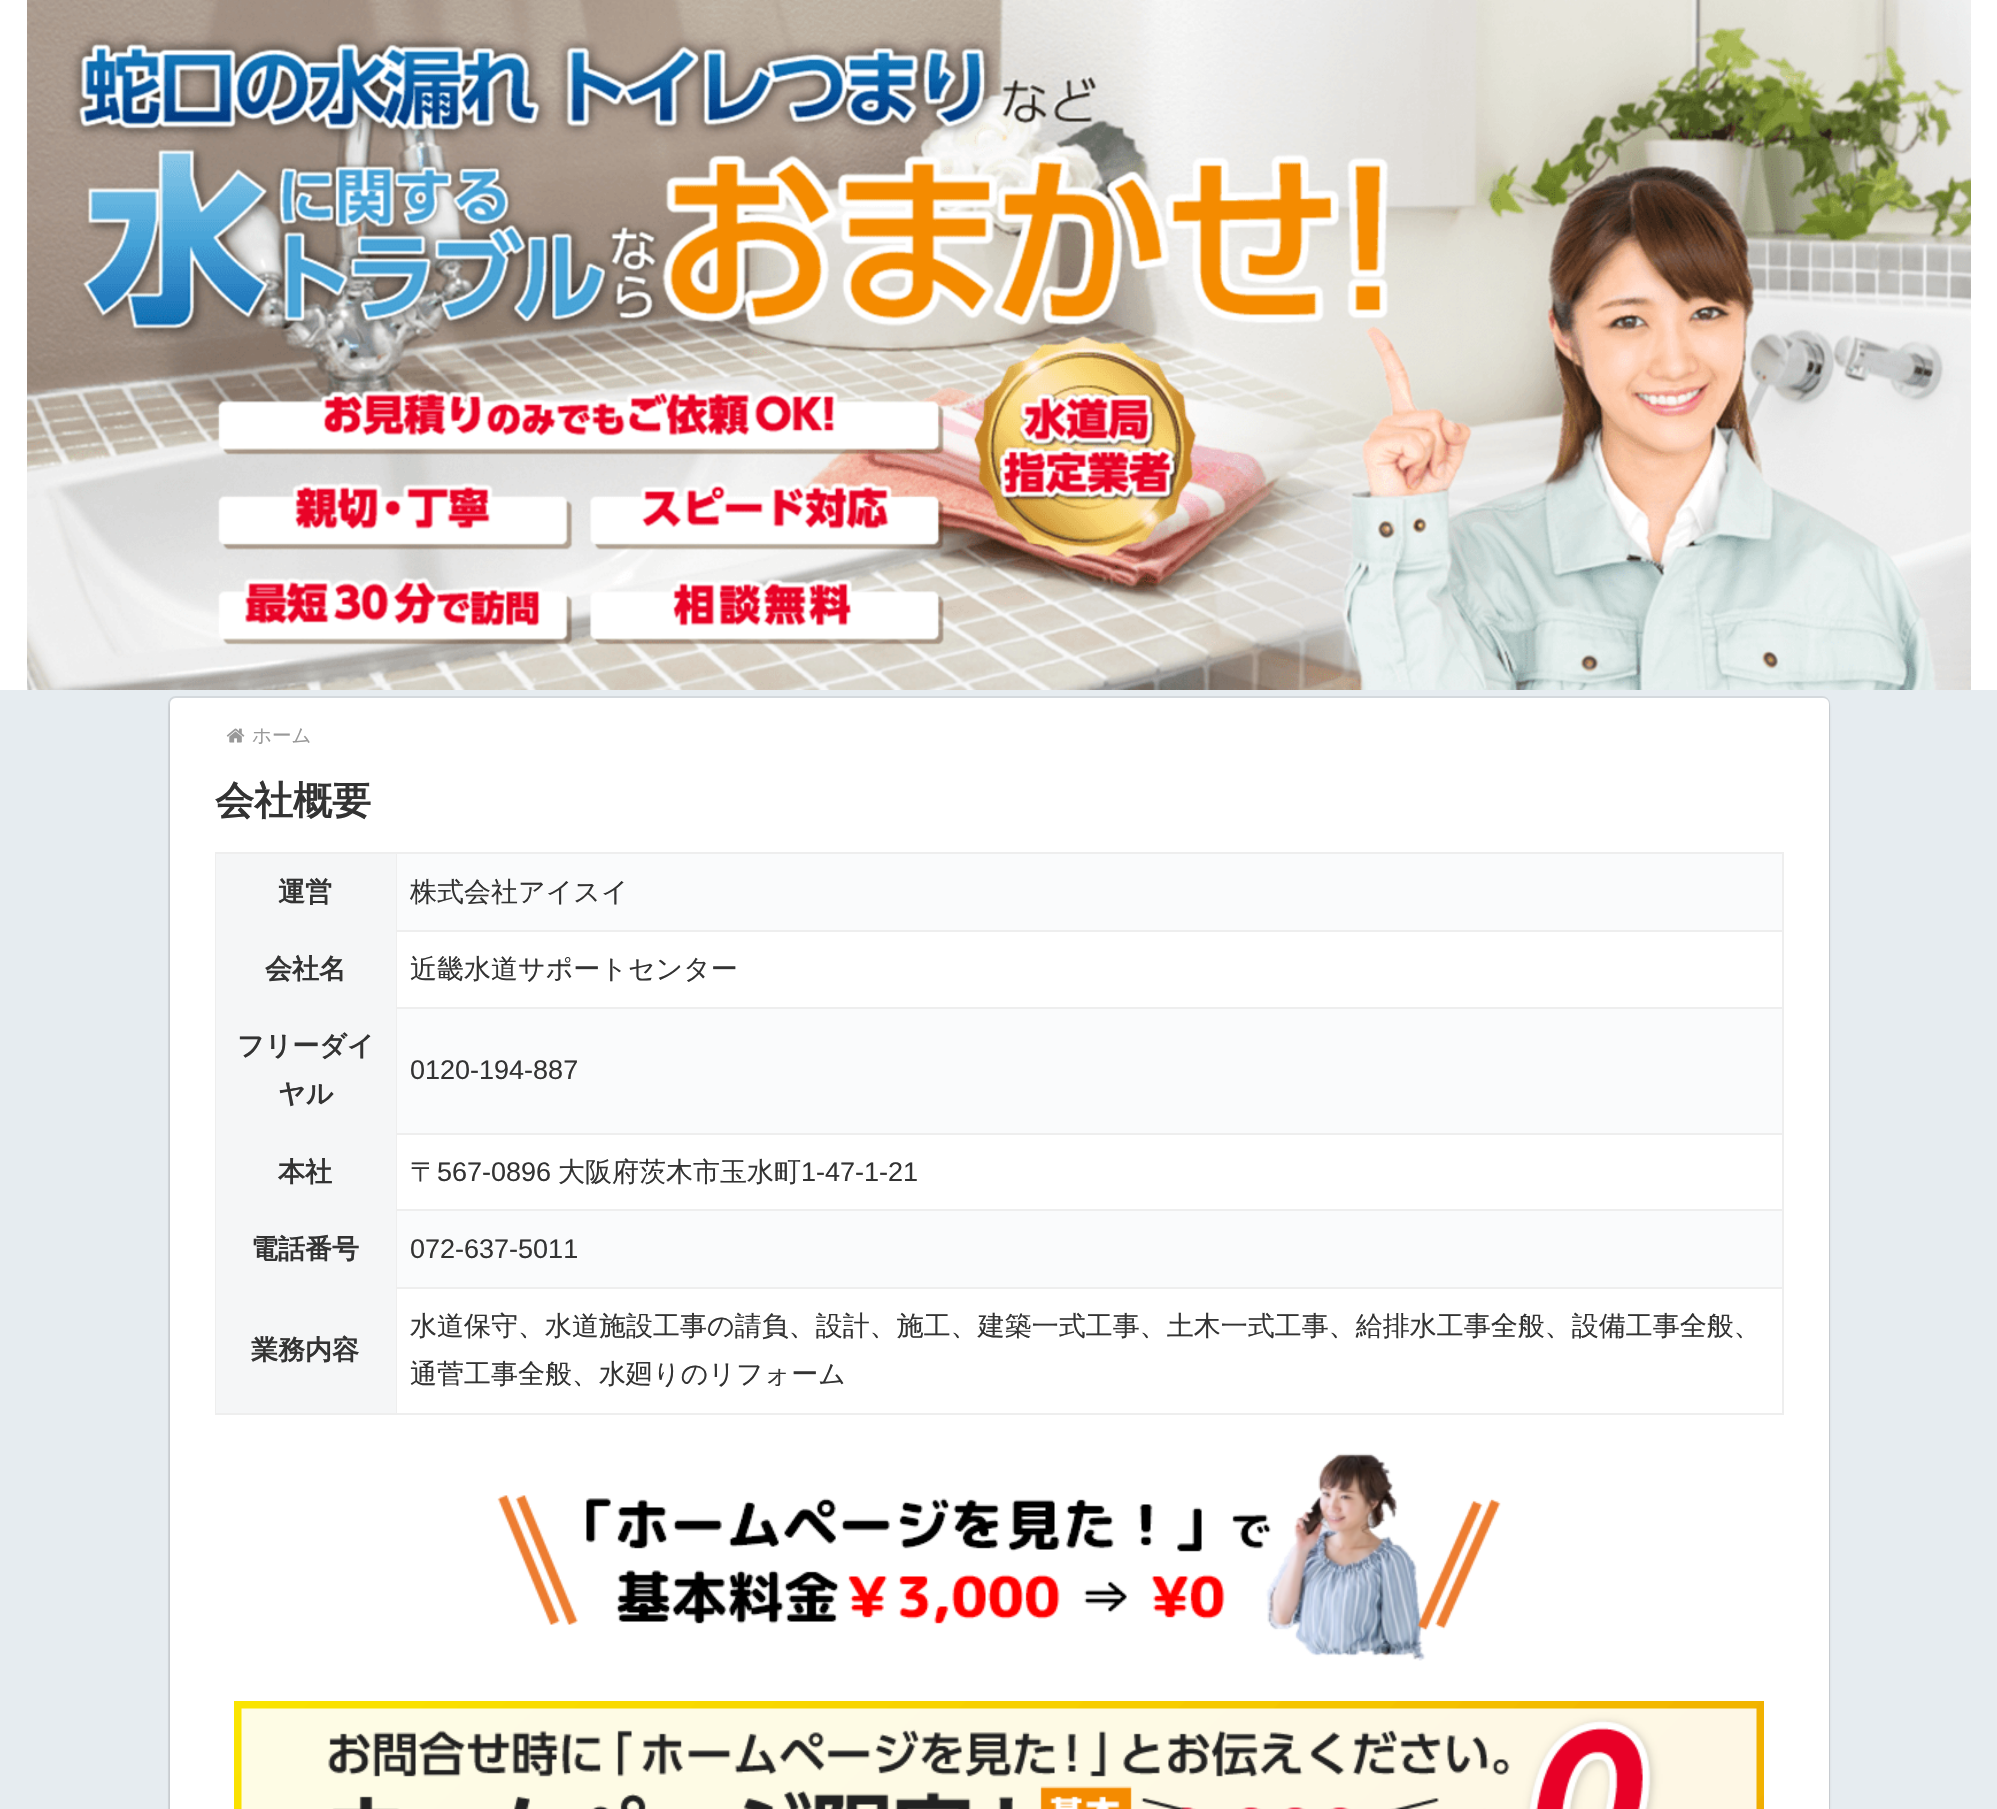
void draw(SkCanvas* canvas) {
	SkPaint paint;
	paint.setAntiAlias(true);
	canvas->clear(0xffe6ecf0);
	paint.setColor(0xffffffff);
	canvas->drawRect(SkRect::MakeXYWH(0, 0, 1997, 690), paint);
	canvas->drawImageRect(SkImages::DeferredFromEncodedData(SkData::MakeFromFileName("img1.png")), SkRect::MakeXYWH(27, 0, 1944, 690), SkSamplingOptions());
	paint.setStroke(true);
	paint.setStrokeWidth(2);
	paint.setColor(0xffd4d9dd);
	canvas->drawRoundRect(SkRect::MakeXYWH(169, 697, 1660, 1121), 7, 7, paint);
	paint.setStroke(false);
	paint.setColor(0x29000000);
	paint.setMaskFilter(SkMaskFilter::MakeBlur(kNormal_SkBlurStyle, 1.5));
	canvas->drawRoundRect(SkRect::MakeXYWH(170, 701, 1659, 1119), 6, 6, paint);
	paint.setMaskFilter(nullptr);
	paint.setColor(0xffffffff);
	canvas->drawRoundRect(SkRect::MakeXYWH(170, 698, 1659, 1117), 6, 6, paint);
	canvas->drawImageRect(SkImages::DeferredFromEncodedData(SkData::MakeFromFileName("img2.png")), SkRect::MakeXYWH(226, 728, 19, 15), SkSamplingOptions());
	SkFont f1(fontMgr->matchFamilyStyle("WenQuanYi Zen Hei", SkFontStyle(500, SkFontStyle::kNormal_Width, SkFontStyle::kUpright_Slant)), 19.5);
	f1.setSubpixel(true);
	paint.setColor(0xff999999);
	canvas->drawString("ホーム", 252, 742, f1, paint);
	SkFont f2(fontMgr->matchFamilyStyle("WenQuanYi Zen Hei", SkFontStyle::Bold()), 39);
	f2.setSubpixel(true);
	paint.setColor(0xff333333);
	canvas->drawString("会社概要", 215, 814, f2, paint);
	paint.setColor(0xfffafbfc);
	canvas->drawRect(SkRect::MakeXYWH(397, 854, 1385, 76), paint);
	paint.setColor(0xffeeeeee);
	canvas->drawRect(SkRect::MakeXYWH(215, 852, 1569, 2), paint);
	canvas->drawRect(SkRect::MakeXYWH(395, 1287, 1389, 2), paint);
	canvas->drawRect(SkRect::MakeXYWH(1782, 1287, 2, 128), paint);
	canvas->drawRect(SkRect::MakeXYWH(215, 1413, 1569, 2), paint);
	canvas->drawRect(SkRect::MakeXYWH(215, 1287, 2, 128), paint);
	canvas->drawRect(SkRect::MakeXYWH(215, 930, 1, 359), paint);
	canvas->drawRect(SkRect::MakeXYWH(215, 852, 2, 80), paint);
	canvas->drawRect(SkRect::MakeXYWH(395, 930, 1389, 2), paint);
	canvas->drawRect(SkRect::MakeXYWH(395, 1007, 1389, 2), paint);
	canvas->drawRect(SkRect::MakeXYWH(395, 1133, 1389, 2), paint);
	canvas->drawRect(SkRect::MakeXYWH(395, 1209, 1389, 2), paint);
	paint.setColor(0xfff5f6f7);
	canvas->drawRect(SkRect::MakeXYWH(216, 854, 180, 559), paint);
	SkFont f3(fontMgr->matchFamilyStyle("WenQuanYi Zen Hei", SkFontStyle::Bold()), 27);
	f3.setSubpixel(true);
	paint.setColor(0xff333333);
	canvas->drawString("運営", 278, 901, f3, paint);
	paint.setColor(0xffeeeeee);
	canvas->drawRect(SkRect::MakeXYWH(1782, 1209, 2, 80), paint);
	canvas->drawRect(SkRect::MakeXYWH(1782, 1133, 2, 78), paint);
	canvas->drawRect(SkRect::MakeXYWH(1782, 1007, 2, 127), paint);
	canvas->drawRect(SkRect::MakeXYWH(1782, 930, 2, 78), paint);
	canvas->drawRect(SkRect::MakeXYWH(1782, 852, 2, 80), paint);
	canvas->drawRect(SkRect::MakeXYWH(396, 1287, 1, 128), paint);
	canvas->drawRect(SkRect::MakeXYWH(396, 1209, 1, 80), paint);
	canvas->drawRect(SkRect::MakeXYWH(396, 1133, 1, 78), paint);
	canvas->drawRect(SkRect::MakeXYWH(396, 1007, 1, 127), paint);
	canvas->drawRect(SkRect::MakeXYWH(396, 930, 1, 78), paint);
	canvas->drawRect(SkRect::MakeXYWH(396, 852, 1, 80), paint);
	SkFont f4(fontMgr->matchFamilyStyle("WenQuanYi Zen Hei", SkFontStyle(500, SkFontStyle::kNormal_Width, SkFontStyle::kUpright_Slant)), 27);
	f4.setSubpixel(true);
	paint.setColor(0xff333333);
	canvas->drawString("株式会社アイスイ", 410, 901, f4, paint);
	canvas->drawString("会社名", 265, 978, f3, paint);
	canvas->drawString("近畿水道サポートセンター", 410, 978, f4, paint);
	paint.setColor(0xfffafbfc);
	canvas->drawRect(SkRect::MakeXYWH(397, 1009, 1385, 124), paint);
	paint.setColor(0xff333333);
	canvas->drawString("フリーダイ", 237, 1055, f3, paint);
	canvas->drawString("ヤル", 278, 1103, f3, paint);
	SkFont f5(fontMgr->matchFamilyStyle("Liberation Sans", SkFontStyle::Normal()), 27);
	f5.setSubpixel(true);
	canvas->drawString("0120-194-887", 410, 1079, f5, paint);
	canvas->drawString("本社", 278, 1181, f3, paint);
	canvas->drawString("〒", 410, 1181, f4, paint);
	canvas->drawString("567-0896", 437, 1181, f5, paint);
	canvas->drawString("大阪府茨木市玉水町", 558, 1181, f4, paint);
	canvas->drawString("1-47-1-21", 801, 1181, f5, paint);
	paint.setColor(0xfffafbfc);
	canvas->drawRect(SkRect::MakeXYWH(397, 1211, 1385, 76), paint);
	paint.setColor(0xff333333);
	canvas->drawString("電話番号", 251, 1258, f3, paint);
	canvas->drawString("072-637-5011", 410, 1258, f5, paint);
	canvas->drawString("業務内容", 251, 1359, f3, paint);
	canvas->drawString("水道保守、水道施設工事の請負、設計、施工、建築一式工事、土木一式工事、給排水工事全般、設備工事全般、", 410, 1335, f4, paint);
	canvas->drawString("通菅工事全般、水廻りのリフォーム", 410, 1383, f4, paint);
	canvas->drawImageRect(SkImages::DeferredFromEncodedData(SkData::MakeFromFileName("img3.png")), SkRect::MakeXYWH(497, 1453, 1004, 208), SkSamplingOptions());
	canvas->drawImageRect(SkImages::DeferredFromEncodedData(SkData::MakeFromFileName("img4.png")), SkRect::MakeXYWH(234, 1701, 1530, 108), SkSamplingOptions());
}
